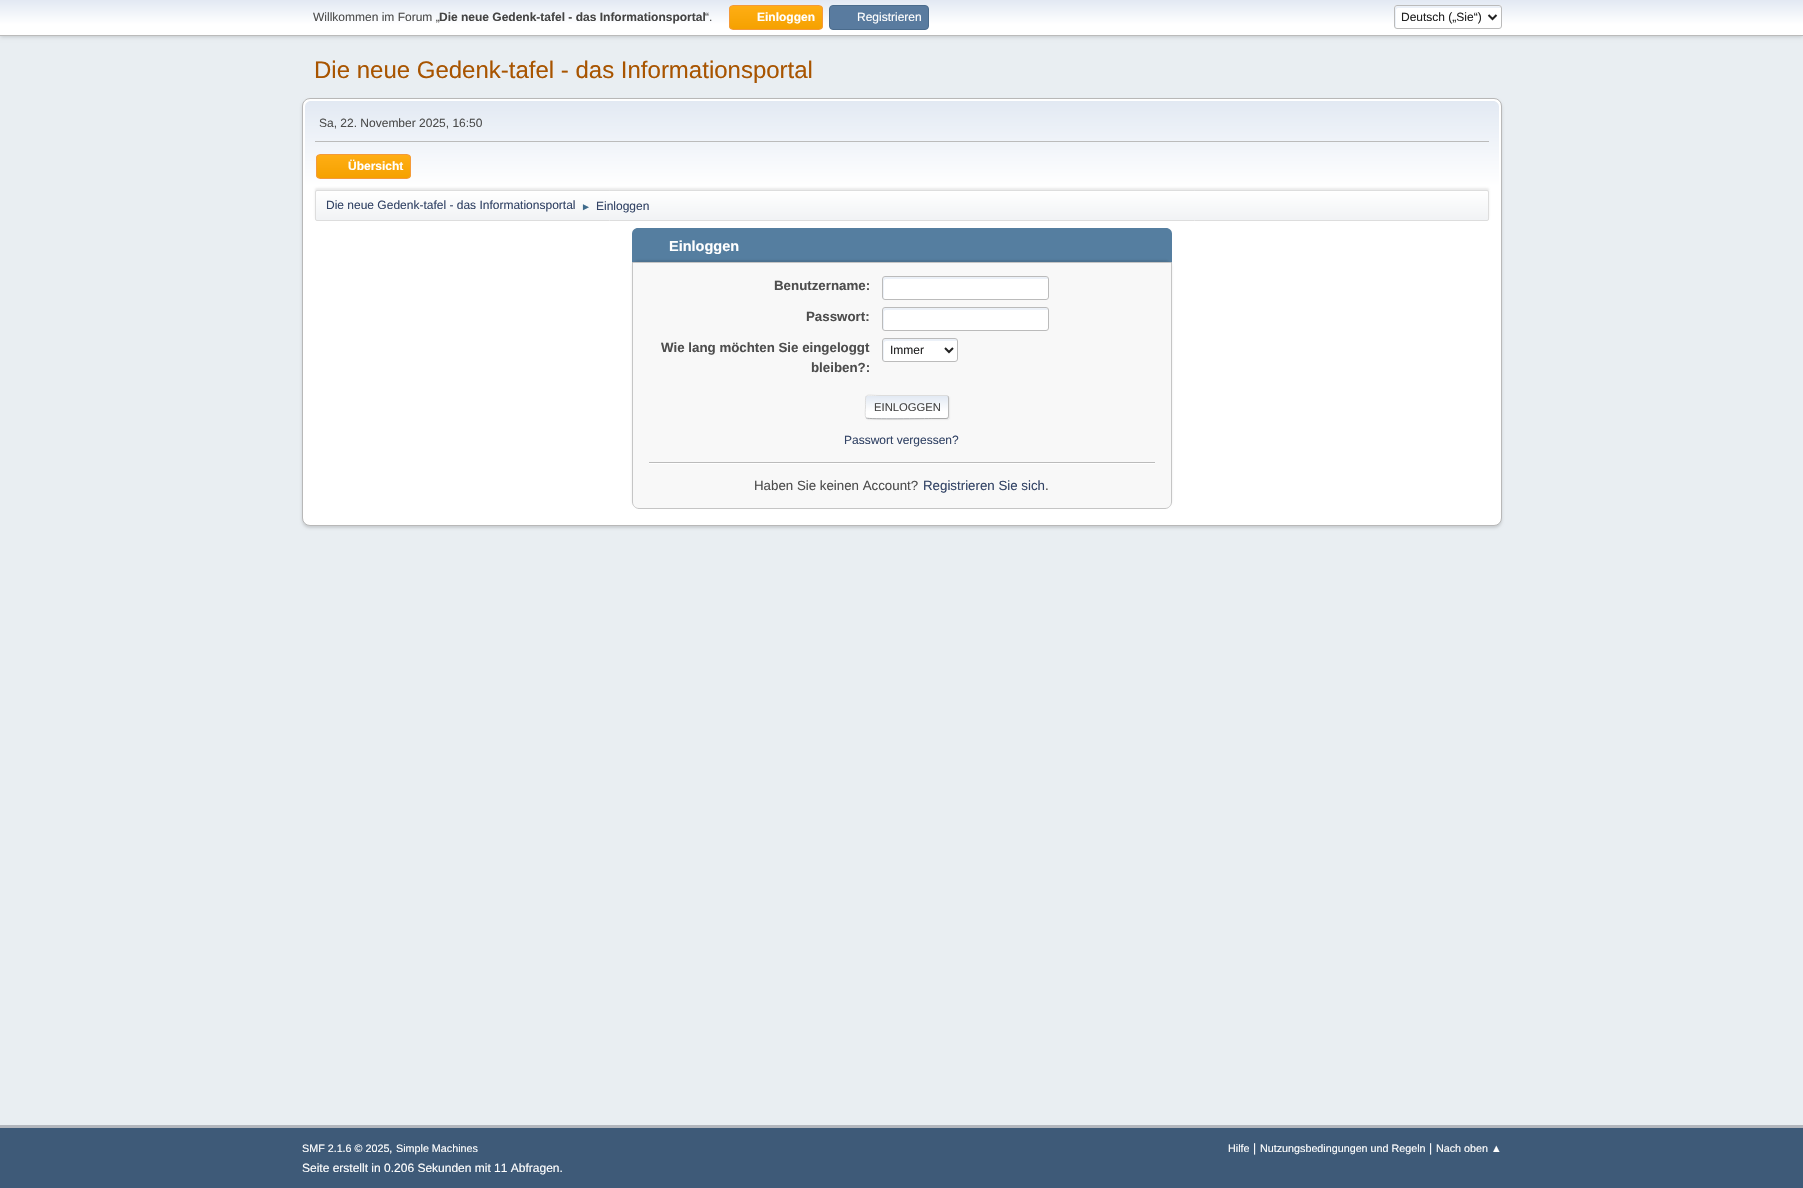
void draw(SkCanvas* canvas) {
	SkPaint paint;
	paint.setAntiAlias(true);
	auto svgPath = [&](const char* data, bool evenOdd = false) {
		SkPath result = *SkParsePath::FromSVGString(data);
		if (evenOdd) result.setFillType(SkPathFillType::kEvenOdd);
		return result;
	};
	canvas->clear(0xffe9eef2);
	paint.setColor(0x29000000);
	paint.setMaskFilter(SkMaskFilter::MakeBlur(kNormal_SkBlurStyle, 2));
	canvas->drawRect(SkRect::MakeXYWH(0, 1, 1803, 36), paint);
	paint.setMaskFilter(nullptr);
	{
		const SkColor colors[] = {0xffe2e9f3, 0xffffffff};
		const float stops[] = {0, 0.7};
		const SkPoint ends[] = {{902, 0}, {902, 35}};
		paint.setShader(SkGradientShader::MakeLinear(ends, colors, stops, 2, SkTileMode::kClamp));
		paint.setAlpha(255);
	}
	canvas->drawRect(SkRect::MakeXYWH(0, 0, 1803, 35), paint);
	paint.setShader(nullptr);
	paint.setColor(0xffbbbbbb);
	canvas->drawRect(SkRect::MakeXYWH(0, 35, 1803, 1), paint);
	SkFont f1(fontMgr->matchFamilyStyle("Liberation Sans", SkFontStyle::Normal()), 12);
	f1.setSubpixel(true);
	paint.setColor(0xff4d4d4d);
	canvas->drawString("Willkommen im Forum „", 313, 21, f1, paint);
	SkFont f2(fontMgr->matchFamilyStyle("Liberation Sans", SkFontStyle::Bold()), 12);
	f2.setSubpixel(true);
	paint.setColor(0xff444444);
	canvas->drawString("Die neue Gedenk-tafel - das Informationsportal", 439, 21, f2, paint);
	paint.setColor(0xff4d4d4d);
	canvas->drawString("“.", 705, 21, f1, paint);
	canvas->save();
	canvas->clipPath(svgPath("M733 5H819C821 5 823 7 823 9V26C823 28 821 30 819 30H733C731 30 729 28 729 26V9C729 7 731 5 733 5Z"), true);
	{
		const SkColor colors[] = {0xffffae14, 0xfff5a100};
		const float stops[] = {0, 1};
		const SkPoint ends[] = {{776, 6}, {776, 29}};
		paint.setShader(SkGradientShader::MakeLinear(ends, colors, stops, 2, SkTileMode::kClamp));
		paint.setAlpha(255);
	}
	canvas->drawRect(SkRect::MakeXYWH(729, 6, 94, 23), paint);
	canvas->restore();
	paint.setStroke(true);
	paint.setStrokeWidth(1);
	paint.setShader(nullptr);
	paint.setColor(0xfff49a3a);
	canvas->drawRoundRect(SkRect::MakeXYWH(729.5, 5.5, 93, 24), 3.5, 3.5, paint);
	paint.setStroke(false);
	paint.setColor(0xffffffff);
	canvas->drawString("Einloggen", 757, 21, f2, paint);
	paint.setColor(0xff597b9f);
	canvas->drawRoundRect(SkRect::MakeXYWH(829.5, 5.5, 99, 24), 3.5, 3.5, paint);
	paint.setStroke(true);
	paint.setColor(0xff4a6b8c);
	canvas->drawRoundRect(SkRect::MakeXYWH(829.5, 5.5, 99, 24), 3.5, 3.5, paint);
	paint.setStroke(false);
	paint.setColor(0xffffffff);
	canvas->drawString("Registrieren", 857, 21, f1, paint);
	canvas->drawRoundRect(SkRect::MakeXYWH(1394, 5, 108, 24), 3, 3, paint);
	paint.setColor(0xffecf1f8);
	canvas->drawPath(svgPath("M1398 8H1501C1501 7 1501 6 1499 6H1397C1396 6 1395 7 1395 8C1395 11 1394 27 1396 28V10C1396 9 1397 8 1398 8Z"), paint);
	paint.setStroke(true);
	paint.setColor(0xffbbbbbb);
	canvas->drawRoundRect(SkRect::MakeXYWH(1394.5, 5.5, 107, 23), 2.5, 2.5, paint);
	paint.setStrokeWidth(2);
	paint.setColor(0xff222222);
	canvas->drawPath(svgPath("M1488.5 15L1492.5 19L1496.5 15"), paint);
	paint.setStroke(false);
	canvas->drawString("Deutsch („Sie“)", 1401, 21, f1, paint);
	SkFont f3(fontMgr->matchFamilyStyle("Liberation Sans", SkFontStyle::Normal()), 24);
	f3.setSubpixel(true);
	paint.setColor(0xffa85400);
	canvas->drawString("Die neue Gedenk-tafel - das Informationsportal", 314, 78, f3, paint);
	paint.setColor(0x24000000);
	paint.setMaskFilter(SkMaskFilter::MakeBlur(kNormal_SkBlurStyle, 1.5));
	canvas->drawRoundRect(SkRect::MakeXYWH(302, 100, 1200, 428), 8, 8, paint);
	paint.setMaskFilter(nullptr);
	paint.setColor(0xffffffff);
	canvas->drawRoundRect(SkRect::MakeXYWH(302.5, 98.5, 1199, 427), 7.5, 7.5, paint);
	paint.setStroke(true);
	paint.setStrokeWidth(1);
	paint.setColor(0xffb8b8b8);
	canvas->drawRoundRect(SkRect::MakeXYWH(302.5, 98.5, 1199, 427), 7.5, 7.5, paint);
	paint.setStroke(false);
	{
		const SkColor colors[] = {0xffe2e9f3, 0xffffffff};
		const float stops[] = {0, 0.7};
		const SkPoint ends[] = {{902, 101}, {902, 223}};
		paint.setShader(SkGradientShader::MakeLinear(ends, colors, stops, 2, SkTileMode::kClamp));
		paint.setAlpha(255);
	}
	canvas->drawPath(svgPath("M311 101H1493C1496.5 101 1499 103.5 1499 107V223H305V107C305 103.5 307.5 101 311 101Z"), paint);
	paint.setShader(nullptr);
	paint.setColor(0xffbbbbbb);
	canvas->drawRect(SkRect::MakeXYWH(315, 141, 1174, 1), paint);
	paint.setColor(0xff4d4d4d);
	canvas->drawString("Sa, 22. November 2025, 16:50", 319, 127, f1, paint);
	canvas->save();
	canvas->clipPath(svgPath("M320 154H407C409 154 411 156 411 158V175C411 177 409 179 407 179H320C318 179 316 177 316 175V158C316 156 318 154 320 154Z"), true);
	{
		const SkColor colors[] = {0xffffae14, 0xfff5a100};
		const float stops[] = {0, 1};
		const SkPoint ends[] = {{364, 155}, {364, 178}};
		paint.setShader(SkGradientShader::MakeLinear(ends, colors, stops, 2, SkTileMode::kClamp));
		paint.setAlpha(255);
	}
	canvas->drawRect(SkRect::MakeXYWH(316, 155, 95, 23), paint);
	canvas->restore();
	paint.setStroke(true);
	paint.setShader(nullptr);
	paint.setColor(0xfff49a3a);
	canvas->drawRoundRect(SkRect::MakeXYWH(316.5, 154.5, 94, 24), 3.5, 3.5, paint);
	paint.setStroke(false);
	paint.setColor(0xffffffff);
	canvas->drawString("Übersicht", 348, 170, f2, paint);
	paint.setColor(0x14000000);
	paint.setMaskFilter(SkMaskFilter::MakeBlur(kNormal_SkBlurStyle, 1));
	canvas->drawRoundRect(SkRect::MakeXYWH(315, 188, 1174, 31), 2, 2, paint);
	paint.setMaskFilter(nullptr);
	canvas->save();
	canvas->clipPath(svgPath("M317 190H1487C1488 190 1489 191 1489 192V219C1489 220 1488 221 1487 221H317C316 221 315 220 315 219V192C315 191 316 190 317 190Z"), true);
	{
		const SkColor colors[] = {0xffffffff, 0xfff1f3f5};
		const float stops[] = {0, 0.95};
		const SkPoint ends[] = {{902, 191}, {902, 220}};
		paint.setShader(SkGradientShader::MakeLinear(ends, colors, stops, 2, SkTileMode::kClamp));
		paint.setAlpha(255);
	}
	canvas->drawRect(SkRect::MakeXYWH(315, 191, 1174, 29), paint);
	canvas->restore();
	paint.setStroke(true);
	paint.setShader(nullptr);
	paint.setColor(0xffdddddd);
	canvas->drawRoundRect(SkRect::MakeXYWH(315.5, 190.5, 1173, 30), 1.5, 1.5, paint);
	paint.setStroke(false);
	paint.setColor(0xff334466);
	canvas->drawString("Die neue Gedenk-tafel - das Informationsportal", 326, 209, f1, paint);
	SkFont f4(fontMgr->matchFamilyStyle("Liberation Sans", SkFontStyle::Normal()), 10);
	f4.setSubpixel(true);
	paint.setColor(0xff3f6b8c);
	canvas->drawString("►", 581, 210, f4, paint);
	paint.setColor(0xff334466);
	canvas->drawString("Einloggen", 596, 210, f1, paint);
	paint.setColor(0xff557ea0);
	canvas->drawPath(svgPath("M638 228H1166C1169.5 228 1172 230.5 1172 234V263H632V234C632 230.5 634.5 228 638 228Z"), paint);
	SkFont f5(fontMgr->matchFamilyStyle("Liberation Sans", SkFontStyle::Bold()), 14.5);
	f5.setSubpixel(true);
	paint.setColor(0xffffffff);
	canvas->drawString("Einloggen", 669, 251, f5, paint);
	paint.setColor(0x1a000000);
	paint.setMaskFilter(SkMaskFilter::MakeBlur(kNormal_SkBlurStyle, 1));
	canvas->drawRoundRect(SkRect::MakeXYWH(632, 260, 540, 247), 7, 7, paint);
	paint.setMaskFilter(nullptr);
	paint.setColor(0xfff8f8f8);
	canvas->drawPath(svgPath("M632.5 262.5H1171.5V502C1171.5 505.5 1168.5 508.5 1165 508.5H639C635.5 508.5 632.5 505.5 632.5 502Z"), paint);
	paint.setStroke(true);
	paint.setColor(0xffc5c5c5);
	canvas->drawPath(svgPath("M632.5 262.5H1171.5V502C1171.5 505.5 1168.5 508.5 1165 508.5H639C635.5 508.5 632.5 505.5 632.5 502Z"), paint);
	SkFont f6(fontMgr->matchFamilyStyle("Liberation Sans", SkFontStyle::Bold()), 13.3);
	f6.setSubpixel(true);
	paint.setStroke(false);
	paint.setColor(0xff4d4d4d);
	canvas->drawString("Benutzername:", 774, 290, f6, paint);
	paint.setColor(0xffffffff);
	canvas->drawRoundRect(SkRect::MakeXYWH(882, 276, 167, 24), 3, 3, paint);
	paint.setColor(0xffecf1f8);
	canvas->drawPath(svgPath("M886 279H1048V278L1046 277H885C884 277 883 278 883 279C883 282 882 298 884 299V281C884 280 885 279 886 279Z"), paint);
	paint.setStroke(true);
	paint.setColor(0xffbbbbbb);
	canvas->drawRoundRect(SkRect::MakeXYWH(882.5, 276.5, 166, 23), 2.5, 2.5, paint);
	paint.setStroke(false);
	paint.setColor(0xff4d4d4d);
	canvas->drawString("Passwort:", 806, 321, f6, paint);
	paint.setColor(0xffffffff);
	canvas->drawRoundRect(SkRect::MakeXYWH(882, 307, 167, 24), 3, 3, paint);
	paint.setColor(0xffecf1f8);
	canvas->drawPath(svgPath("M886 310H1048V309L1046 308H885C884 308 883 309 883 310C883 313 882 329 884 330V312C884 311 885 310 886 310Z"), paint);
	paint.setStroke(true);
	paint.setColor(0xffbbbbbb);
	canvas->drawRoundRect(SkRect::MakeXYWH(882.5, 307.5, 166, 23), 2.5, 2.5, paint);
	paint.setStroke(false);
	paint.setColor(0xff4d4d4d);
	canvas->drawString("Wie lang möchten Sie eingeloggt", 661, 352, f6, paint);
	canvas->drawString("bleiben?:", 811, 372, f6, paint);
	paint.setColor(0xffffffff);
	canvas->drawRoundRect(SkRect::MakeXYWH(882, 338, 76, 24), 3, 3, paint);
	paint.setColor(0xffecf1f8);
	canvas->drawPath(svgPath("M886 341H957C957 337 948 339 943 339H897C881 339 883 336 883 350C883 352 882 360 884 361V343C884 342 885 341 886 341Z"), paint);
	paint.setStroke(true);
	paint.setColor(0xffbbbbbb);
	canvas->drawRoundRect(SkRect::MakeXYWH(882.5, 338.5, 75, 23), 2.5, 2.5, paint);
	paint.setStrokeWidth(2);
	paint.setColor(0xff222222);
	canvas->drawPath(svgPath("M945 348L949 352L953 348"), paint);
	paint.setStroke(false);
	canvas->drawString("Immer", 890, 354, f1, paint);
	paint.setColor(0x91dddddd);
	paint.setMaskFilter(SkMaskFilter::MakeBlur(kNormal_SkBlurStyle, 0.5));
	canvas->drawRoundRect(SkRect::MakeXYWH(866, 396, 84, 24), 3, 3, paint);
	paint.setMaskFilter(nullptr);
	canvas->save();
	canvas->clipPath(svgPath("M868 395H946C947.5 395 949 396.5 949 398V416C949 417.5 947.5 419 946 419H868C866.5 419 865 417.5 865 416V398C865 396.5 866.5 395 868 395Z"), true);
	{
		const SkColor colors[] = {0xffe2e9f3, 0xffffffff};
		const float stops[] = {0, 0.7};
		const SkPoint ends[] = {{907, 374}, {907, 396}};
		paint.setShader(SkGradientShader::MakeLinear(ends, colors, stops, 2, SkTileMode::kClamp));
		paint.setAlpha(255);
	}
	canvas->drawRect(SkRect::MakeXYWH(865, 395, 84, 1), paint);
	{
		const SkColor colors[] = {0xffe2e9f3, 0xffffffff};
		const float stops[] = {0, 0.7};
		const SkPoint ends[] = {{907, 396}, {907, 418}};
		paint.setShader(SkGradientShader::MakeLinear(ends, colors, stops, 2, SkTileMode::kClamp));
		paint.setAlpha(255);
	}
	canvas->drawRect(SkRect::MakeXYWH(865, 396, 84, 22), paint);
	{
		const SkColor colors[] = {0xffe2e9f3, 0xffffffff};
		const float stops[] = {0, 0.7};
		const SkPoint ends[] = {{907, 418}, {907, 440}};
		paint.setShader(SkGradientShader::MakeLinear(ends, colors, stops, 2, SkTileMode::kClamp));
		paint.setAlpha(255);
	}
	canvas->drawRect(SkRect::MakeXYWH(865, 418, 84, 1), paint);
	canvas->restore();
	paint.setStroke(true);
	paint.setStrokeWidth(1);
	paint.setShader(nullptr);
	paint.setColor(0xffbbbbbb);
	canvas->drawPath(svgPath("M948 396C948 396.5 948.5 397.5 948.5 398V416C948.5 416.5 948 417.5 948 418"), paint);
	paint.setColor(0xffaaaaaa);
	canvas->drawPath(svgPath("M948 418L946 418.5H933C926 418.5 868.5 419.5 866.5 418H866"), paint);
	paint.setColor(0xffdddddd);
	canvas->drawPath(svgPath("M866 418C864.5 416 865.5 409 865.5 407C865.5 392 864 395.5 881 395.5H947L948 396"), paint);
	SkFont f7(fontMgr->matchFamilyStyle("Liberation Sans", SkFontStyle::Normal()), 11.25);
	f7.setSubpixel(true);
	paint.setStroke(false);
	paint.setColor(0xff444444);
	canvas->drawString("EINLOGGEN", 874, 411, f7, paint);
	paint.setColor(0xff334466);
	canvas->drawString("Passwort vergessen?", 844, 444, f1, paint);
	paint.setColor(0xffffffff);
	canvas->drawRect(SkRect::MakeXYWH(649, 463, 506, 1), paint);
	paint.setColor(0xffbbbbbb);
	canvas->drawRect(SkRect::MakeXYWH(649, 462, 506, 1), paint);
	SkFont f8(fontMgr->matchFamilyStyle("Liberation Sans", SkFontStyle::Normal()), 13.3);
	f8.setSubpixel(true);
	paint.setColor(0xff4d4d4d);
	canvas->drawString("Haben Sie keinen Account?", 754, 490, f8, paint);
	paint.setColor(0xff334466);
	canvas->drawString("Registrieren Sie sich", 923, 490, f8, paint);
	paint.setColor(0xff4d4d4d);
	canvas->drawString(".", 1045, 490, f8, paint);
	paint.setColor(0xff3e5a78);
	canvas->drawRect(SkRect::MakeXYWH(0, 1128, 1803, 60), paint);
	paint.setColor(0xffb2b6bd);
	canvas->drawRect(SkRect::MakeXYWH(0, 1125, 1803, 3), paint);
	SkFont f9(fontMgr->matchFamilyStyle("Liberation Sans", SkFontStyle::Normal()), 10.75);
	f9.setSubpixel(true);
	paint.setColor(0xffffffff);
	canvas->drawString("SMF 2.1.6 © 2025", 302, 1152, f9, paint);
	canvas->drawString(",", 389, 1152, f1, paint);
	canvas->drawString("Simple Machines", 396, 1152, f9, paint);
	canvas->drawString("Hilfe", 1228, 1152, f9, paint);
	canvas->drawString("|", 1253, 1152, f1, paint);
	canvas->drawString("Nutzungsbedingungen und Regeln", 1260, 1152, f9, paint);
	canvas->drawString("|", 1429, 1152, f1, paint);
	canvas->drawString("Nach oben ▲", 1436, 1152, f9, paint);
	canvas->drawString("Seite erstellt in 0.206 Sekunden mit 11 Abfragen.", 302, 1172, f1, paint);
}
